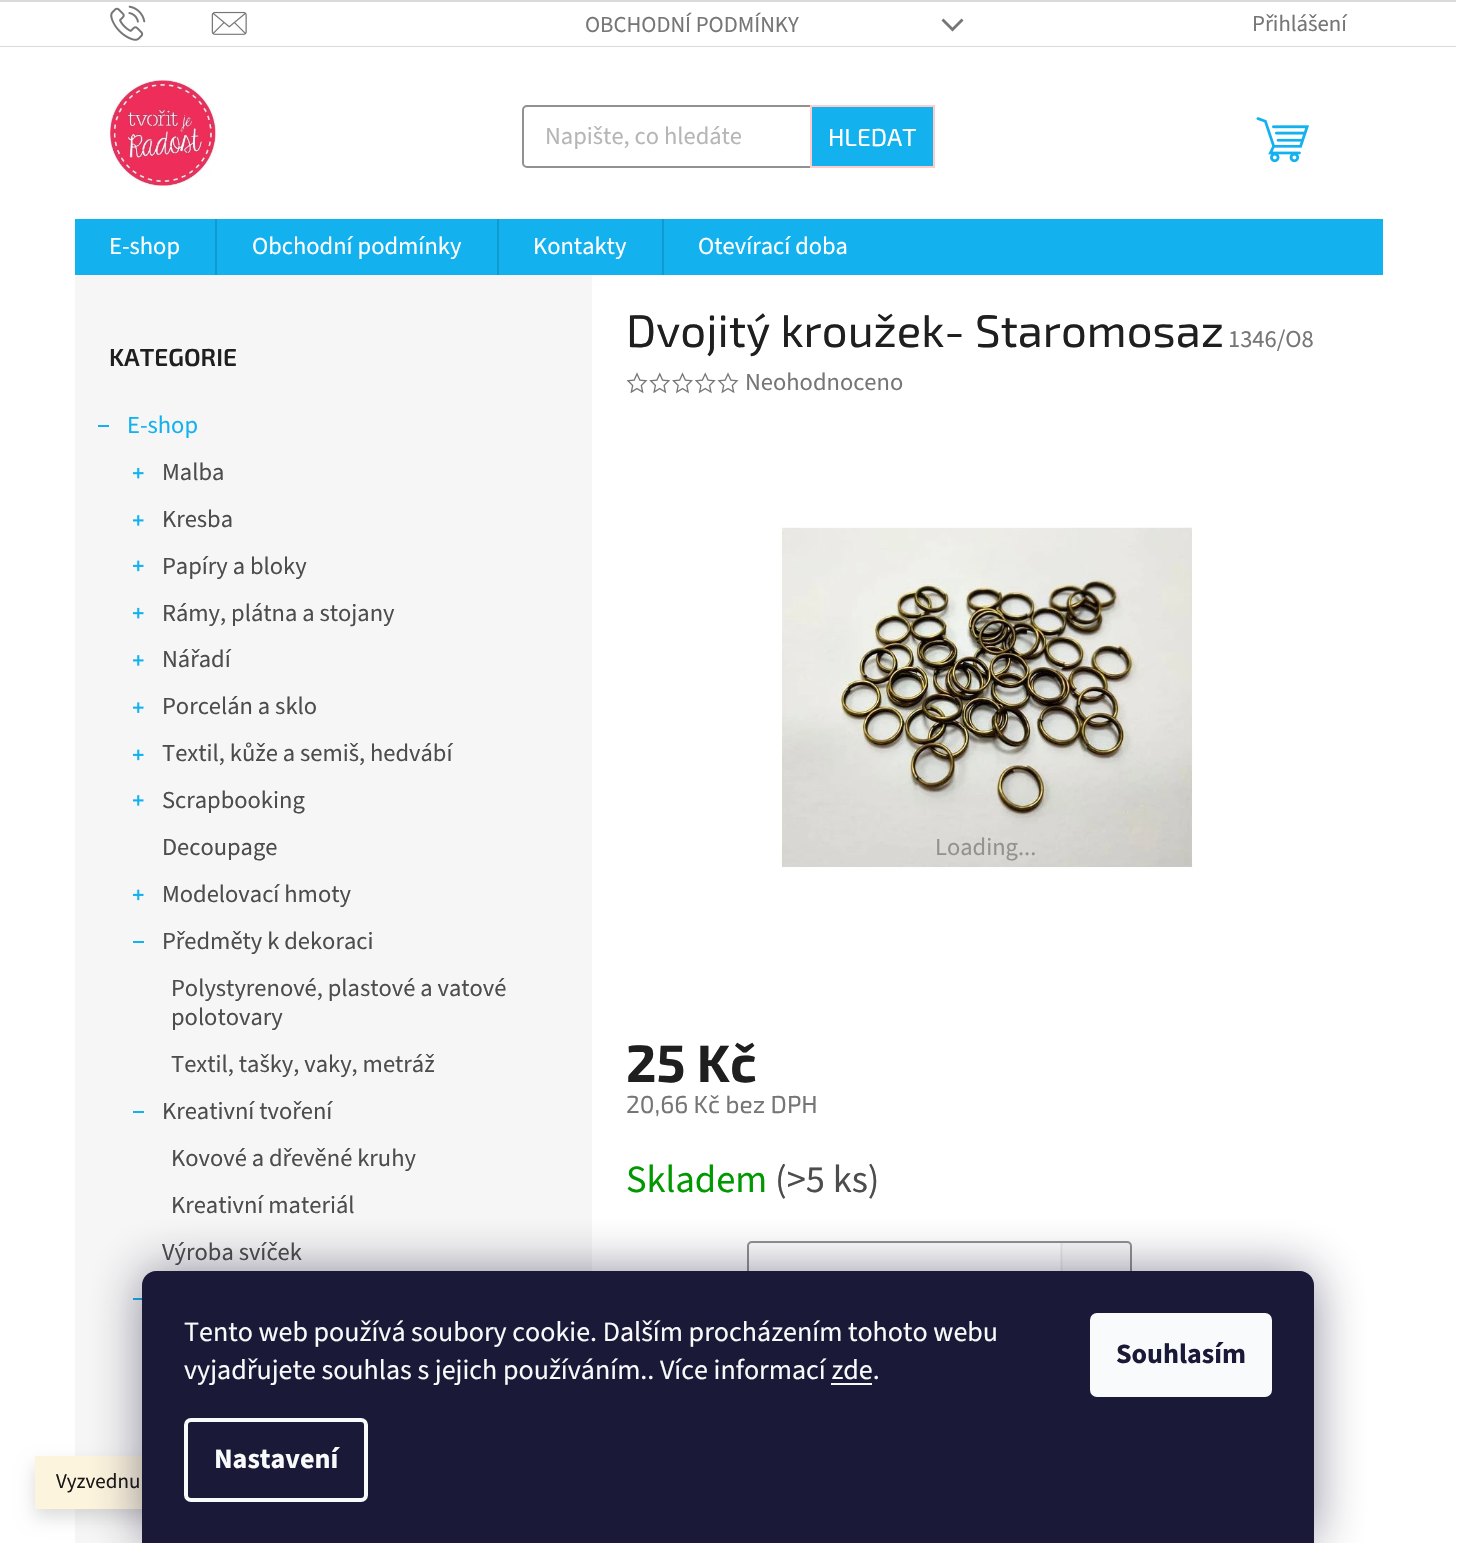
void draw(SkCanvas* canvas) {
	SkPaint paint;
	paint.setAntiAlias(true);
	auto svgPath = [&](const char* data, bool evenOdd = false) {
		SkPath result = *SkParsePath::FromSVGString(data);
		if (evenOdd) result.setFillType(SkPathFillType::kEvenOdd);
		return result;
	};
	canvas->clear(0xffffffff);
	paint.setColor(0xffdadada);
	canvas->drawRect(SkRect::MakeXYWH(0, 0, 1456, 2), paint);
	canvas->drawRect(SkRect::MakeXYWH(0, 46, 1456, 1), paint);
	canvas->drawImageRect(SkImages::DeferredFromEncodedData(SkData::MakeFromFileName("img1.png")), SkRect::MakeXYWH(110, 5, 36, 36), SkSamplingOptions());
	canvas->drawImageRect(SkImages::DeferredFromEncodedData(SkData::MakeFromFileName("img2.png")), SkRect::MakeXYWH(211, 11, 36, 24), SkSamplingOptions());
	SkFont f1(fontMgr->matchFamilyStyle("Source Sans 3", SkFontStyle::Normal()), 22.75);
	f1.setSubpixel(true);
	paint.setColor(0xff767676);
	canvas->drawString("OBCHODNÍ PODMÍNKY", 585, 32, f1, paint);
	canvas->drawPath(svgPath("M941.5 20.5L943.5 18.5L952.5 27.5L961.5 18.5L963.5 20.5L952.5 31.5Z"), paint);
	canvas->drawString("Přihlášení", 1252, 31, f1, paint);
	canvas->drawImageRect(SkImages::DeferredFromEncodedData(SkData::MakeFromFileName("img3.png")), SkRect::MakeXYWH(110, 80, 106, 106), SkSamplingOptions());
	paint.setStroke(true);
	paint.setStrokeWidth(2);
	paint.setColor(0xff919191);
	canvas->drawRoundRect(SkRect::MakeXYWH(523, 106, 411, 61), 4, 4, paint);
	SkFont f2(fontMgr->matchFamilyStyle("Source Sans 3", SkFontStyle::Normal()), 24.5);
	f2.setSubpixel(true);
	paint.setStroke(false);
	paint.setColor(0xffb6b6b6);
	canvas->drawString("Napište, co hledáte", 545, 144, f2, paint);
	paint.setColor(0xff14b1ef);
	canvas->drawRect(SkRect::MakeXYWH(811, 106, 123, 61), paint);
	paint.setStroke(true);
	paint.setColor(0xffffccc9);
	canvas->drawRect(SkRect::MakeXYWH(811, 106, 123, 61), paint);
	SkFont f3(fontMgr->matchFamilyStyle("Exo 2", SkFontStyle::Normal()), 24.5);
	f3.setSubpixel(true);
	paint.setStroke(false);
	paint.setColor(0xffffffff);
	canvas->drawString("HLEDAT", 828, 146, f3, paint);
	canvas->drawImageRect(SkImages::DeferredFromEncodedData(SkData::MakeFromFileName("img4.png")), SkRect::MakeXYWH(1256, 117, 53, 46), SkSamplingOptions());
	paint.setColor(0xff14b1ef);
	canvas->drawRect(SkRect::MakeXYWH(75, 219, 1308, 56), paint);
	paint.setColor(0xffffffff);
	canvas->drawString("E-shop", 109, 254, f2, paint);
	paint.setColor(0xff0f9ad2);
	canvas->drawRect(SkRect::MakeXYWH(215, 219, 2, 56), paint);
	paint.setColor(0xffffffff);
	canvas->drawString("Obchodní podmínky", 252, 254, f2, paint);
	paint.setColor(0xff0f9ad2);
	canvas->drawRect(SkRect::MakeXYWH(497, 219, 2, 56), paint);
	paint.setColor(0xffffffff);
	canvas->drawString("Kontakty", 533, 254, f2, paint);
	paint.setColor(0xff0f9ad2);
	canvas->drawRect(SkRect::MakeXYWH(662, 219, 2, 56), paint);
	paint.setColor(0xffffffff);
	canvas->drawString("Otevírací doba", 698, 254, f2, paint);
	paint.setColor(0xfff6f6f6);
	canvas->drawRect(SkRect::MakeXYWH(75, 275, 517, 1268), paint);
	SkFont f4(fontMgr->matchFamilyStyle("Exo 2", SkFontStyle(600, SkFontStyle::kNormal_Width, SkFontStyle::kUpright_Slant)), 24.5);
	f4.setSubpixel(true);
	paint.setColor(0xff1f1f1f);
	canvas->drawString("KATEGORIE", 109, 366, f4, paint);
	paint.setColor(0xff14b1ef);
	canvas->drawRect(SkRect::MakeXYWH(98, 425, 11, 2), paint);
	canvas->drawString("E-shop", 127, 433, f2, paint);
	canvas->drawImageRect(SkImages::DeferredFromEncodedData(SkData::MakeFromFileName("img5.png")), SkRect::MakeXYWH(133, 467, 11, 12), SkSamplingOptions());
	paint.setColor(0xff4d4d4d);
	canvas->drawString("Malba", 162, 480, f2, paint);
	canvas->drawImageRect(SkImages::DeferredFromEncodedData(SkData::MakeFromFileName("img6.png")), SkRect::MakeXYWH(133, 515, 11, 11), SkSamplingOptions());
	canvas->drawString("Kresba", 162, 527, f2, paint);
	canvas->drawImageRect(SkImages::DeferredFromEncodedData(SkData::MakeFromFileName("img7.png")), SkRect::MakeXYWH(133, 560, 11, 12), SkSamplingOptions());
	canvas->drawString("Papíry a bloky", 162, 574, f2, paint);
	canvas->drawImageRect(SkImages::DeferredFromEncodedData(SkData::MakeFromFileName("img5.png")), SkRect::MakeXYWH(133, 607, 11, 12), SkSamplingOptions());
	canvas->drawString("Rámy, plátna a stojany", 162, 621, f2, paint);
	canvas->drawImageRect(SkImages::DeferredFromEncodedData(SkData::MakeFromFileName("img6.png")), SkRect::MakeXYWH(133, 655, 11, 11), SkSamplingOptions());
	canvas->drawString("Nářadí", 162, 667, f2, paint);
	canvas->drawImageRect(SkImages::DeferredFromEncodedData(SkData::MakeFromFileName("img8.png")), SkRect::MakeXYWH(133, 702, 11, 11), SkSamplingOptions());
	canvas->drawString("Porcelán a sklo", 162, 714, f2, paint);
	canvas->drawImageRect(SkImages::DeferredFromEncodedData(SkData::MakeFromFileName("img7.png")), SkRect::MakeXYWH(133, 749, 11, 12), SkSamplingOptions());
	canvas->drawString("Textil, kůže a semiš, hedvábí", 162, 761, f2, paint);
	canvas->drawImageRect(SkImages::DeferredFromEncodedData(SkData::MakeFromFileName("img6.png")), SkRect::MakeXYWH(133, 795, 11, 11), SkSamplingOptions());
	canvas->drawString("Scrapbooking", 162, 808, f2, paint);
	canvas->drawString("Decoupage", 162, 855, f2, paint);
	canvas->drawImageRect(SkImages::DeferredFromEncodedData(SkData::MakeFromFileName("img7.png")), SkRect::MakeXYWH(133, 889, 11, 12), SkSamplingOptions());
	canvas->drawString("Modelovací hmoty", 162, 902, f2, paint);
	paint.setColor(0xff14b1ef);
	canvas->drawRect(SkRect::MakeXYWH(133, 941, 11, 2), paint);
	paint.setColor(0xff4d4d4d);
	canvas->drawString("Předměty k dekoraci", 162, 949, f2, paint);
	canvas->drawString("Polystyrenové, plastové a vatové", 171, 996, f2, paint);
	canvas->drawString("polotovary", 171, 1025, f2, paint);
	canvas->drawString("Textil, tašky, vaky, metráž", 171, 1072, f2, paint);
	paint.setColor(0xff14b1ef);
	canvas->drawRect(SkRect::MakeXYWH(133, 1111, 11, 2), paint);
	paint.setColor(0xff4d4d4d);
	canvas->drawString("Kreativní tvoření", 162, 1119, f2, paint);
	canvas->drawString("Kovové a dřevěné kruhy", 171, 1166, f2, paint);
	canvas->drawString("Kreativní materiál", 171, 1213, f2, paint);
	canvas->drawString("Výroba svíček", 162, 1260, f2, paint);
	paint.setColor(0xff14b1ef);
	canvas->drawRect(SkRect::MakeXYWH(133, 1298, 11, 2), paint);
	SkFont f5(fontMgr->matchFamilyStyle("Exo 2", SkFontStyle::Normal()), 45.5);
	f5.setSubpixel(true);
	paint.setColor(0xff1f1f1f);
	canvas->drawString("Dvojitý kroužek- Staromosaz", 626, 347, f5, paint);
	paint.setColor(0xff767676);
	canvas->drawString("1346/O8", 1228, 347, f2, paint);
	canvas->drawImageRect(SkImages::DeferredFromEncodedData(SkData::MakeFromFileName("img9.png")), SkRect::MakeXYWH(626, 372, 22, 22), SkSamplingOptions());
	canvas->drawImageRect(SkImages::DeferredFromEncodedData(SkData::MakeFromFileName("img10.png")), SkRect::MakeXYWH(649, 372, 21, 22), SkSamplingOptions());
	canvas->drawImageRect(SkImages::DeferredFromEncodedData(SkData::MakeFromFileName("img11.png")), SkRect::MakeXYWH(672, 372, 21, 22), SkSamplingOptions());
	canvas->drawImageRect(SkImages::DeferredFromEncodedData(SkData::MakeFromFileName("img12.png")), SkRect::MakeXYWH(695, 372, 21, 22), SkSamplingOptions());
	canvas->drawImageRect(SkImages::DeferredFromEncodedData(SkData::MakeFromFileName("img9.png")), SkRect::MakeXYWH(717, 372, 22, 22), SkSamplingOptions());
	canvas->drawString("Neohodnoceno", 745, 390, f2, paint);
	canvas->drawImageRect(SkImages::DeferredFromEncodedData(SkData::MakeFromFileName("img13.png")), SkRect::MakeXYWH(780, 527, 413, 342), SkSamplingOptions());
	paint.setColor(0xff939290);
	canvas->drawString("Loading...", 935, 855, f2, paint);
	SkFont f6(fontMgr->matchFamilyStyle("Exo 2", SkFontStyle::Bold()), 52.5);
	f6.setSubpixel(true);
	paint.setColor(0xff1f1f1f);
	canvas->drawString("25 Kč", 626, 1082, f6, paint);
	paint.setColor(0xff767676);
	canvas->drawString("20,66 Kč bez DPH", 626, 1113, f3, paint);
	SkFont f7(fontMgr->matchFamilyStyle("Source Sans 3", SkFontStyle::Normal()), 38.5);
	f7.setSubpixel(true);
	paint.setColor(0xff009901);
	canvas->drawString("Skladem", 626, 1192, f7, paint);
	paint.setColor(0xff4d4d4d);
	canvas->drawString("(>5 ks)", 775, 1192, f7, paint);
	canvas->drawImageRect(SkImages::DeferredFromEncodedData(SkData::MakeFromFileName("img14.png")), SkRect::MakeXYWH(1060, 1241, 70, 30), SkSamplingOptions());
	paint.setStroke(true);
	paint.setColor(0xff919191);
	canvas->drawRoundRect(SkRect::MakeXYWH(748, 1242, 383, 61), 4, 4, paint);
	canvas->save();
	canvas->clipPath(svgPath("M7 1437H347V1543H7ZM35 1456H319V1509H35Z", true), true);
	paint.setStroke(false);
	paint.setColor(0x24000000);
	paint.setMaskFilter(SkMaskFilter::MakeBlur(kNormal_SkBlurStyle, 9));
	canvas->drawRect(SkRect::MakeXYWH(35, 1465, 284, 52), paint);
	paint.setMaskFilter(nullptr);
	canvas->restore();
	paint.setColor(0xe6fdf3da);
	canvas->drawRect(SkRect::MakeXYWH(35, 1456, 107, 53), paint);
	SkFont f8(fontMgr->matchFamilyStyle("Source Sans 3", SkFontStyle::Normal()), 21);
	f8.setSubpixel(true);
	paint.setColor(0xff191816);
	canvas->drawString("Vyzvednu", 56, 1488, f8, paint);
	paint.setColor(0x801b1939);
	paint.setMaskFilter(SkMaskFilter::MakeBlur(kNormal_SkBlurStyle, 26));
	canvas->drawRoundRect(SkRect::MakeXYWH(142, 1271, 1172, 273), 14, 14, paint);
	paint.setMaskFilter(nullptr);
	paint.setColor(0xff1a1937);
	canvas->drawPath(svgPath("M156 1271H1300C1307.5 1271 1314 1277.5 1314 1285V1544H142V1285C142 1277.5 148.5 1271 156 1271Z"), paint);
	SkFont f9(fontMgr->matchFamilyStyle("Source Sans 3", SkFontStyle::Normal()), 28);
	f9.setSubpixel(true);
	paint.setColor(0xfff8fafb);
	canvas->drawString("Tento web používá soubory cookie. Dalším procházením tohoto webu", 184, 1341, f9, paint);
	canvas->drawString("vyjadřujete souhlas s jejich používáním.. Více informací zde.", 184, 1379, f9, paint);
	canvas->drawRect(SkRect::MakeXYWH(831, 1383, 41, 2), paint);
	paint.setStroke(true);
	paint.setStrokeWidth(4);
	canvas->drawRoundRect(SkRect::MakeXYWH(186, 1420, 180, 80), 5, 5, paint);
	SkFont f10(fontMgr->matchFamilyStyle("Source Sans 3", SkFontStyle::Bold()), 28);
	f10.setSubpixel(true);
	paint.setStroke(false);
	canvas->drawString("Nastavení", 214, 1468, f10, paint);
	canvas->drawRoundRect(SkRect::MakeXYWH(1090, 1313, 182, 84), 7, 7, paint);
	paint.setColor(0xff1a1937);
	canvas->drawString("Souhlasím", 1116, 1363, f10, paint);
}
